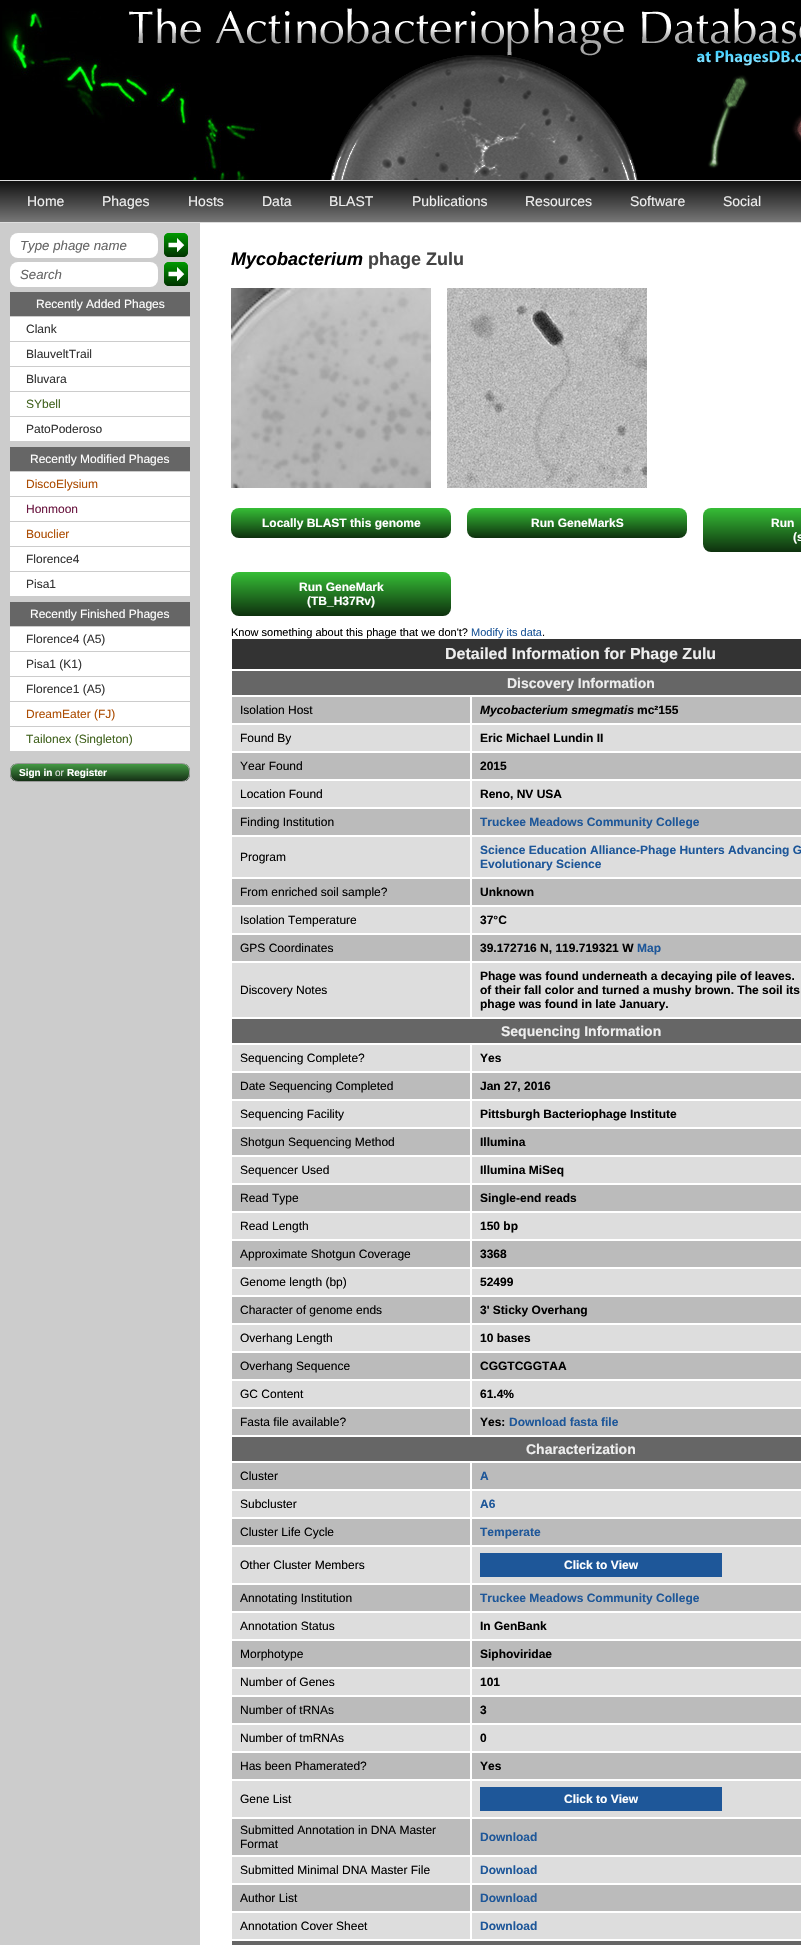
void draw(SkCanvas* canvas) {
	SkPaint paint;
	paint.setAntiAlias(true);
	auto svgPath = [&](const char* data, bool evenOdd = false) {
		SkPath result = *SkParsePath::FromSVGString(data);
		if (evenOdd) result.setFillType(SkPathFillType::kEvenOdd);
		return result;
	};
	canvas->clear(0xffffffff);
	paint.setColor(0xff000000);
	canvas->drawRect(SkRect::MakeXYWH(0, 0, 801, 180), paint);
	canvas->drawImageRect(SkImages::DeferredFromEncodedData(SkData::MakeFromFileName("img1.png")), SkRect::MakeXYWH(2, 8, 799, 172), SkSamplingOptions());
	{
		const SkColor colors[] = {0xff111111, 0xff777777};
		const float stops[] = {0, 1};
		const SkPoint ends[] = {{0, 181}, {0, 222}};
		paint.setShader(SkGradientShader::MakeLinear(ends, colors, stops, 2, SkTileMode::kClamp));
		paint.setAlpha(255);
	}
	canvas->drawRect(SkRect::MakeXYWH(0, 181, 801, 41), paint);
	paint.setShader(nullptr);
	paint.setColor(0xffdddddd);
	canvas->drawRect(SkRect::MakeXYWH(0, 180, 801, 1), paint);
	canvas->drawRect(SkRect::MakeXYWH(0, 222, 801, 1), paint);
	SkFont f1(fontMgr->matchFamilyStyle("Liberation Sans", SkFontStyle::Normal()), 14);
	f1.setSubpixel(true);
	paint.setColor(0xffeeeeee);
	canvas->drawString("Home", 27, 206, f1, paint);
	canvas->drawString("Phages", 102, 206, f1, paint);
	canvas->drawString("Hosts", 188, 206, f1, paint);
	canvas->drawString("Data", 262, 206, f1, paint);
	canvas->drawString("BLAST", 329, 206, f1, paint);
	canvas->drawString("Publications", 412, 206, f1, paint);
	canvas->drawString("Resources", 525, 206, f1, paint);
	canvas->drawString("Software", 630, 206, f1, paint);
	canvas->drawString("Social", 723, 206, f1, paint);
	paint.setColor(0xffcccccc);
	canvas->drawRect(SkRect::MakeXYWH(0, 223, 200, 1722), paint);
	paint.setColor(0xffffffff);
	canvas->drawRoundRect(SkRect::MakeXYWH(10, 233, 148, 25), 8, 8, paint);
	SkFont f2(fontMgr->matchFamilyStyle("Liberation Sans", SkFontStyle::Italic()), 13.25);
	f2.setSubpixel(true);
	paint.setColor(0xff666666);
	canvas->drawString("Type phage name", 20, 250, f2, paint);
	canvas->drawImageRect(SkImages::DeferredFromEncodedData(SkData::MakeFromFileName("img2.png")), SkRect::MakeXYWH(164, 233, 24, 24), SkSamplingOptions());
	paint.setColor(0xffffffff);
	canvas->drawRoundRect(SkRect::MakeXYWH(10, 262, 148, 25), 8, 8, paint);
	paint.setColor(0xff666666);
	canvas->drawString("Search", 20, 279, f2, paint);
	canvas->drawImageRect(SkImages::DeferredFromEncodedData(SkData::MakeFromFileName("img2.png")), SkRect::MakeXYWH(164, 262, 24, 24), SkSamplingOptions());
	canvas->drawRect(SkRect::MakeXYWH(10, 292, 180, 24), paint);
	SkFont f3(fontMgr->matchFamilyStyle("Liberation Sans", SkFontStyle::Normal()), 12);
	f3.setSubpixel(true);
	paint.setColor(0xffffffff);
	canvas->drawString("Recently Added Phages", 36, 308, f3, paint);
	canvas->drawRect(SkRect::MakeXYWH(10, 317, 180, 24), paint);
	paint.setColor(0xff333333);
	canvas->drawString("Clank", 26, 333, f3, paint);
	paint.setColor(0xffffffff);
	canvas->drawRect(SkRect::MakeXYWH(10, 342, 180, 24), paint);
	paint.setColor(0xff333333);
	canvas->drawString("BlauveltTrail", 26, 358, f3, paint);
	paint.setColor(0xffffffff);
	canvas->drawRect(SkRect::MakeXYWH(10, 367, 180, 24), paint);
	paint.setColor(0xff333333);
	canvas->drawString("Bluvara", 26, 383, f3, paint);
	paint.setColor(0xffffffff);
	canvas->drawRect(SkRect::MakeXYWH(10, 392, 180, 24), paint);
	paint.setColor(0xff42631f);
	canvas->drawString("SYbell", 26, 408, f3, paint);
	paint.setColor(0xffffffff);
	canvas->drawRect(SkRect::MakeXYWH(10, 417, 180, 24), paint);
	paint.setColor(0xff333333);
	canvas->drawString("PatoPoderoso", 26, 433, f3, paint);
	paint.setColor(0xff666666);
	canvas->drawRect(SkRect::MakeXYWH(10, 447, 180, 24), paint);
	paint.setColor(0xffffffff);
	canvas->drawString("Recently Modified Phages", 30, 463, f3, paint);
	canvas->drawRect(SkRect::MakeXYWH(10, 472, 180, 24), paint);
	paint.setColor(0xffad4e04);
	canvas->drawString("DiscoElysium", 26, 488, f3, paint);
	paint.setColor(0xffffffff);
	canvas->drawRect(SkRect::MakeXYWH(10, 497, 180, 24), paint);
	paint.setColor(0xff6c1942);
	canvas->drawString("Honmoon", 26, 513, f3, paint);
	paint.setColor(0xffffffff);
	canvas->drawRect(SkRect::MakeXYWH(10, 522, 180, 24), paint);
	paint.setColor(0xffad4e04);
	canvas->drawString("Bouclier", 26, 538, f3, paint);
	paint.setColor(0xffffffff);
	canvas->drawRect(SkRect::MakeXYWH(10, 547, 180, 24), paint);
	paint.setColor(0xff333333);
	canvas->drawString("Florence4", 26, 563, f3, paint);
	paint.setColor(0xffffffff);
	canvas->drawRect(SkRect::MakeXYWH(10, 572, 180, 24), paint);
	paint.setColor(0xff333333);
	canvas->drawString("Pisa1", 26, 588, f3, paint);
	paint.setColor(0xff666666);
	canvas->drawRect(SkRect::MakeXYWH(10, 602, 180, 24), paint);
	paint.setColor(0xffffffff);
	canvas->drawString("Recently Finished Phages", 30, 618, f3, paint);
	canvas->drawRect(SkRect::MakeXYWH(10, 627, 180, 24), paint);
	paint.setColor(0xff333333);
	canvas->drawString("Florence4 (A5)", 26, 643, f3, paint);
	paint.setColor(0xffffffff);
	canvas->drawRect(SkRect::MakeXYWH(10, 652, 180, 24), paint);
	paint.setColor(0xff333333);
	canvas->drawString("Pisa1 (K1)", 26, 668, f3, paint);
	paint.setColor(0xffffffff);
	canvas->drawRect(SkRect::MakeXYWH(10, 677, 180, 24), paint);
	paint.setColor(0xff333333);
	canvas->drawString("Florence1 (A5)", 26, 693, f3, paint);
	paint.setColor(0xffffffff);
	canvas->drawRect(SkRect::MakeXYWH(10, 702, 180, 24), paint);
	paint.setColor(0xffad4e04);
	canvas->drawString("DreamEater (FJ)", 26, 718, f3, paint);
	paint.setColor(0xffffffff);
	canvas->drawRect(SkRect::MakeXYWH(10, 727, 180, 24), paint);
	paint.setColor(0xff42631f);
	canvas->drawString("Tailonex (Singleton)", 26, 743, f3, paint);
	canvas->save();
	canvas->clipPath(svgPath("M18 763H182C186.5 763 190 766.5 190 771V774C190 778.5 186.5 782 182 782H18C13.5 782 10 778.5 10 774V771C10 766.5 13.5 763 18 763Z"), true);
	{
		const SkColor colors[] = {0xff449944, 0xff152f15};
		const float stops[] = {0, 1};
		const SkPoint ends[] = {{11, 764}, {11, 781}};
		paint.setShader(SkGradientShader::MakeLinear(ends, colors, stops, 2, SkTileMode::kClamp));
		paint.setAlpha(255);
	}
	canvas->drawRect(SkRect::MakeXYWH(10, 764, 180, 17), paint);
	canvas->restore();
	paint.setStroke(true);
	paint.setStrokeWidth(1);
	paint.setShader(nullptr);
	paint.setColor(0xff999999);
	canvas->drawRoundRect(SkRect::MakeXYWH(10.5, 763.5, 179, 18), 7.5, 7.5, paint);
	SkFont f4(fontMgr->matchFamilyStyle("Liberation Sans", SkFontStyle::Bold()), 10);
	f4.setSubpixel(true);
	paint.setStroke(false);
	paint.setColor(0xffffffff);
	canvas->drawString("Sign in", 19, 776, f4, paint);
	SkFont f5(fontMgr->matchFamilyStyle("Liberation Sans", SkFontStyle::Normal()), 10);
	f5.setSubpixel(true);
	paint.setColor(0xffdddddd);
	canvas->drawString("or", 55, 776, f5, paint);
	paint.setColor(0xffffffff);
	canvas->drawString("Register", 67, 776, f4, paint);
	SkFont f6(fontMgr->matchFamilyStyle("Liberation Sans", SkFontStyle::BoldItalic()), 18);
	f6.setSubpixel(true);
	paint.setColor(0xff000000);
	canvas->drawString("Mycobacterium", 231, 265, f6, paint);
	SkFont f7(fontMgr->matchFamilyStyle("Liberation Sans", SkFontStyle::Bold()), 18);
	f7.setSubpixel(true);
	paint.setColor(0xff444444);
	canvas->drawString("phage Zulu", 368, 265, f7, paint);
	canvas->drawImageRect(SkImages::DeferredFromEncodedData(SkData::MakeFromFileName("img3.png")), SkRect::MakeXYWH(231, 288, 200, 200), SkSamplingOptions());
	canvas->drawImageRect(SkImages::DeferredFromEncodedData(SkData::MakeFromFileName("img4.png")), SkRect::MakeXYWH(447, 288, 200, 200), SkSamplingOptions());
	{
		const SkColor colors[] = {0xff36be36, 0xff0e300e};
		const float stops[] = {0, 1};
		const SkPoint ends[] = {{231, 508}, {231, 538}};
		paint.setShader(SkGradientShader::MakeLinear(ends, colors, stops, 2, SkTileMode::kClamp));
		paint.setAlpha(255);
	}
	canvas->drawRoundRect(SkRect::MakeXYWH(231, 508, 220, 30), 8, 8, paint);
	SkFont f8(fontMgr->matchFamilyStyle("Liberation Sans", SkFontStyle::Bold()), 12);
	f8.setSubpixel(true);
	paint.setShader(nullptr);
	paint.setColor(0xffffffff);
	canvas->drawString("Locally BLAST this genome", 262, 527, f8, paint);
	{
		const SkColor colors[] = {0xff36be36, 0xff0e300e};
		const float stops[] = {0, 1};
		const SkPoint ends[] = {{467, 508}, {467, 538}};
		paint.setShader(SkGradientShader::MakeLinear(ends, colors, stops, 2, SkTileMode::kClamp));
		paint.setAlpha(255);
	}
	canvas->drawRoundRect(SkRect::MakeXYWH(467, 508, 220, 30), 8, 8, paint);
	paint.setShader(nullptr);
	paint.setColor(0xffffffff);
	canvas->drawString("Run GeneMarkS", 531, 527, f8, paint);
	{
		const SkColor colors[] = {0xff36be36, 0xff0e300e};
		const float stops[] = {0, 1};
		const SkPoint ends[] = {{703, 508}, {703, 552}};
		paint.setShader(SkGradientShader::MakeLinear(ends, colors, stops, 2, SkTileMode::kClamp));
		paint.setAlpha(255);
	}
	canvas->drawRoundRect(SkRect::MakeXYWH(703, 508, 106, 44), 8, 8, paint);
	paint.setShader(nullptr);
	paint.setColor(0xffffffff);
	canvas->drawString("Run", 771, 527, f8, paint);
	canvas->drawString("(s", 793, 541, f8, paint);
	{
		const SkColor colors[] = {0xff36be36, 0xff0e300e};
		const float stops[] = {0, 1};
		const SkPoint ends[] = {{231, 572}, {231, 616}};
		paint.setShader(SkGradientShader::MakeLinear(ends, colors, stops, 2, SkTileMode::kClamp));
		paint.setAlpha(255);
	}
	canvas->drawRoundRect(SkRect::MakeXYWH(231, 572, 220, 44), 8, 8, paint);
	paint.setShader(nullptr);
	paint.setColor(0xffffffff);
	canvas->drawString("Run GeneMark", 299, 591, f8, paint);
	canvas->drawString("(TB_H37Rv)", 307, 605, f8, paint);
	SkFont f9(fontMgr->matchFamilyStyle("Liberation Sans", SkFontStyle::Normal()), 11);
	f9.setSubpixel(true);
	paint.setColor(0xff000000);
	canvas->drawString("Know something about this phage that we don't?", 231, 636, f9, paint);
	paint.setColor(0xff1e5799);
	canvas->drawString("Modify its data", 471, 636, f9, paint);
	paint.setColor(0xff000000);
	canvas->drawString(".", 542, 636, f9, paint);
	paint.setColor(0xffdddddd);
	canvas->drawRect(SkRect::MakeXYWH(232, 725, 569, 1214), paint);
	paint.setColor(0xff333333);
	canvas->drawRect(SkRect::MakeXYWH(232, 639, 569, 30), paint);
	SkFont f10(fontMgr->matchFamilyStyle("Liberation Sans", SkFontStyle::Bold()), 16);
	f10.setSubpixel(true);
	paint.setColor(0xffeeeeee);
	canvas->drawString("Detailed Information for Phage Zulu", 445, 659, f10, paint);
	paint.setColor(0xff666666);
	canvas->drawRect(SkRect::MakeXYWH(232, 671, 569, 24), paint);
	SkFont f11(fontMgr->matchFamilyStyle("Liberation Sans", SkFontStyle::Bold()), 14);
	f11.setSubpixel(true);
	paint.setColor(0xffeeeeee);
	canvas->drawString("Discovery Information", 507, 688, f11, paint);
	paint.setColor(0xffbbbbbb);
	canvas->drawRect(SkRect::MakeXYWH(232, 697, 569, 26), paint);
	paint.setStroke(true);
	paint.setColor(0xffffffff);
	canvas->drawRect(SkRect::MakeXYWH(231.5, 696.5, 239, 27), paint);
	paint.setStroke(false);
	paint.setColor(0xff000000);
	canvas->drawString("Isolation Host", 240, 714, f3, paint);
	paint.setStroke(true);
	paint.setColor(0xffffffff);
	canvas->drawRect(SkRect::MakeXYWH(471.5, 696.5, 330, 27), paint);
	SkFont f12(fontMgr->matchFamilyStyle("Liberation Sans", SkFontStyle::BoldItalic()), 12);
	f12.setSubpixel(true);
	paint.setStroke(false);
	paint.setColor(0xff000000);
	canvas->drawString("Mycobacterium smegmatis", 480, 714, f12, paint);
	canvas->drawString("mc²155", 637, 714, f8, paint);
	paint.setStroke(true);
	paint.setColor(0xffffffff);
	canvas->drawRect(SkRect::MakeXYWH(231.5, 724.5, 239, 27), paint);
	paint.setStroke(false);
	paint.setColor(0xff000000);
	canvas->drawString("Found By", 240, 742, f3, paint);
	paint.setStroke(true);
	paint.setColor(0xffffffff);
	canvas->drawRect(SkRect::MakeXYWH(471.5, 724.5, 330, 27), paint);
	paint.setStroke(false);
	paint.setColor(0xff000000);
	canvas->drawString("Eric Michael Lundin II", 480, 742, f8, paint);
	paint.setColor(0xffbbbbbb);
	canvas->drawRect(SkRect::MakeXYWH(232, 753, 569, 26), paint);
	paint.setStroke(true);
	paint.setColor(0xffffffff);
	canvas->drawRect(SkRect::MakeXYWH(231.5, 752.5, 239, 27), paint);
	paint.setStroke(false);
	paint.setColor(0xff000000);
	canvas->drawString("Year Found", 240, 770, f3, paint);
	paint.setStroke(true);
	paint.setColor(0xffffffff);
	canvas->drawRect(SkRect::MakeXYWH(471.5, 752.5, 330, 27), paint);
	paint.setStroke(false);
	paint.setColor(0xff000000);
	canvas->drawString("2015", 480, 770, f8, paint);
	paint.setStroke(true);
	paint.setColor(0xffffffff);
	canvas->drawRect(SkRect::MakeXYWH(231.5, 780.5, 239, 27), paint);
	paint.setStroke(false);
	paint.setColor(0xff000000);
	canvas->drawString("Location Found", 240, 798, f3, paint);
	paint.setStroke(true);
	paint.setColor(0xffffffff);
	canvas->drawRect(SkRect::MakeXYWH(471.5, 780.5, 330, 27), paint);
	paint.setStroke(false);
	paint.setColor(0xff000000);
	canvas->drawString("Reno, NV USA", 480, 798, f8, paint);
	paint.setColor(0xffbbbbbb);
	canvas->drawRect(SkRect::MakeXYWH(232, 809, 569, 26), paint);
	paint.setStroke(true);
	paint.setColor(0xffffffff);
	canvas->drawRect(SkRect::MakeXYWH(231.5, 808.5, 239, 27), paint);
	paint.setStroke(false);
	paint.setColor(0xff000000);
	canvas->drawString("Finding Institution", 240, 826, f3, paint);
	paint.setStroke(true);
	paint.setColor(0xffffffff);
	canvas->drawRect(SkRect::MakeXYWH(471.5, 808.5, 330, 27), paint);
	paint.setStroke(false);
	paint.setColor(0xff1e5799);
	canvas->drawString("Truckee Meadows Community College", 480, 826, f8, paint);
	paint.setStroke(true);
	paint.setColor(0xffffffff);
	canvas->drawRect(SkRect::MakeXYWH(231.5, 836.5, 239, 41), paint);
	paint.setStroke(false);
	paint.setColor(0xff000000);
	canvas->drawString("Program", 240, 861, f3, paint);
	paint.setStroke(true);
	paint.setColor(0xffffffff);
	canvas->drawRect(SkRect::MakeXYWH(471.5, 836.5, 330, 41), paint);
	paint.setStroke(false);
	paint.setColor(0xff1e5799);
	canvas->drawString("Science Education Alliance-Phage Hunters Advancing G", 480, 854, f8, paint);
	canvas->drawString("Evolutionary Science", 480, 868, f8, paint);
	paint.setColor(0xffbbbbbb);
	canvas->drawRect(SkRect::MakeXYWH(232, 879, 569, 26), paint);
	paint.setStroke(true);
	paint.setColor(0xffffffff);
	canvas->drawRect(SkRect::MakeXYWH(231.5, 878.5, 239, 27), paint);
	paint.setStroke(false);
	paint.setColor(0xff000000);
	canvas->drawString("From enriched soil sample?", 240, 896, f3, paint);
	paint.setStroke(true);
	paint.setColor(0xffffffff);
	canvas->drawRect(SkRect::MakeXYWH(471.5, 878.5, 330, 27), paint);
	paint.setStroke(false);
	paint.setColor(0xff000000);
	canvas->drawString("Unknown", 480, 896, f8, paint);
	paint.setStroke(true);
	paint.setColor(0xffffffff);
	canvas->drawRect(SkRect::MakeXYWH(231.5, 906.5, 239, 27), paint);
	paint.setStroke(false);
	paint.setColor(0xff000000);
	canvas->drawString("Isolation Temperature", 240, 924, f3, paint);
	paint.setStroke(true);
	paint.setColor(0xffffffff);
	canvas->drawRect(SkRect::MakeXYWH(471.5, 906.5, 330, 27), paint);
	paint.setStroke(false);
	paint.setColor(0xff000000);
	canvas->drawString("37°C", 480, 924, f8, paint);
	paint.setColor(0xffbbbbbb);
	canvas->drawRect(SkRect::MakeXYWH(232, 935, 569, 26), paint);
	paint.setStroke(true);
	paint.setColor(0xffffffff);
	canvas->drawRect(SkRect::MakeXYWH(231.5, 934.5, 239, 27), paint);
	paint.setStroke(false);
	paint.setColor(0xff000000);
	canvas->drawString("GPS Coordinates", 240, 952, f3, paint);
	paint.setStroke(true);
	paint.setColor(0xffffffff);
	canvas->drawRect(SkRect::MakeXYWH(471.5, 934.5, 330, 27), paint);
	paint.setStroke(false);
	paint.setColor(0xff000000);
	canvas->drawString("39.172716 N, 119.719321 W", 480, 952, f8, paint);
	paint.setColor(0xff1e5799);
	canvas->drawString("Map", 637, 952, f8, paint);
	paint.setStroke(true);
	paint.setColor(0xffffffff);
	canvas->drawRect(SkRect::MakeXYWH(231.5, 962.5, 239, 55), paint);
	paint.setStroke(false);
	paint.setColor(0xff000000);
	canvas->drawString("Discovery Notes", 240, 994, f3, paint);
	paint.setStroke(true);
	paint.setColor(0xffffffff);
	canvas->drawRect(SkRect::MakeXYWH(471.5, 962.5, 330, 55), paint);
	paint.setStroke(false);
	paint.setColor(0xff000000);
	canvas->drawString("Phage was found underneath a decaying pile of leaves.", 480, 980, f8, paint);
	canvas->drawString("of their fall color and turned a mushy brown. The soil its", 480, 994, f8, paint);
	canvas->drawString("phage was found in late January.", 480, 1008, f8, paint);
	paint.setColor(0xff666666);
	canvas->drawRect(SkRect::MakeXYWH(231.5, 1018.5, 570, 25), paint);
	paint.setStroke(true);
	paint.setColor(0xffffffff);
	canvas->drawRect(SkRect::MakeXYWH(231.5, 1018.5, 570, 25), paint);
	paint.setStroke(false);
	paint.setColor(0xffeeeeee);
	canvas->drawString("Sequencing Information", 501, 1036, f11, paint);
	paint.setStroke(true);
	paint.setColor(0xffffffff);
	canvas->drawRect(SkRect::MakeXYWH(231.5, 1044.5, 239, 27), paint);
	paint.setStroke(false);
	paint.setColor(0xff000000);
	canvas->drawString("Sequencing Complete?", 240, 1062, f3, paint);
	paint.setStroke(true);
	paint.setColor(0xffffffff);
	canvas->drawRect(SkRect::MakeXYWH(471.5, 1044.5, 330, 27), paint);
	paint.setStroke(false);
	paint.setColor(0xff000000);
	canvas->drawString("Yes", 480, 1062, f8, paint);
	paint.setColor(0xffbbbbbb);
	canvas->drawRect(SkRect::MakeXYWH(232, 1073, 569, 26), paint);
	paint.setStroke(true);
	paint.setColor(0xffffffff);
	canvas->drawRect(SkRect::MakeXYWH(231.5, 1072.5, 239, 27), paint);
	paint.setStroke(false);
	paint.setColor(0xff000000);
	canvas->drawString("Date Sequencing Completed", 240, 1090, f3, paint);
	paint.setStroke(true);
	paint.setColor(0xffffffff);
	canvas->drawRect(SkRect::MakeXYWH(471.5, 1072.5, 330, 27), paint);
	paint.setStroke(false);
	paint.setColor(0xff000000);
	canvas->drawString("Jan 27, 2016", 480, 1090, f8, paint);
	paint.setStroke(true);
	paint.setColor(0xffffffff);
	canvas->drawRect(SkRect::MakeXYWH(231.5, 1100.5, 239, 27), paint);
	paint.setStroke(false);
	paint.setColor(0xff000000);
	canvas->drawString("Sequencing Facility", 240, 1118, f3, paint);
	paint.setStroke(true);
	paint.setColor(0xffffffff);
	canvas->drawRect(SkRect::MakeXYWH(471.5, 1100.5, 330, 27), paint);
	paint.setStroke(false);
	paint.setColor(0xff000000);
	canvas->drawString("Pittsburgh Bacteriophage Institute", 480, 1118, f8, paint);
	paint.setColor(0xffbbbbbb);
	canvas->drawRect(SkRect::MakeXYWH(232, 1129, 569, 26), paint);
	paint.setStroke(true);
	paint.setColor(0xffffffff);
	canvas->drawRect(SkRect::MakeXYWH(231.5, 1128.5, 239, 27), paint);
	paint.setStroke(false);
	paint.setColor(0xff000000);
	canvas->drawString("Shotgun Sequencing Method", 240, 1146, f3, paint);
	paint.setStroke(true);
	paint.setColor(0xffffffff);
	canvas->drawRect(SkRect::MakeXYWH(471.5, 1128.5, 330, 27), paint);
	paint.setStroke(false);
	paint.setColor(0xff000000);
	canvas->drawString("Illumina", 480, 1146, f8, paint);
	paint.setStroke(true);
	paint.setColor(0xffffffff);
	canvas->drawRect(SkRect::MakeXYWH(231.5, 1156.5, 239, 27), paint);
	paint.setStroke(false);
	paint.setColor(0xff000000);
	canvas->drawString("Sequencer Used", 240, 1174, f3, paint);
	paint.setStroke(true);
	paint.setColor(0xffffffff);
	canvas->drawRect(SkRect::MakeXYWH(471.5, 1156.5, 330, 27), paint);
	paint.setStroke(false);
	paint.setColor(0xff000000);
	canvas->drawString("Illumina MiSeq", 480, 1174, f8, paint);
	paint.setColor(0xffbbbbbb);
	canvas->drawRect(SkRect::MakeXYWH(232, 1185, 569, 26), paint);
	paint.setStroke(true);
	paint.setColor(0xffffffff);
	canvas->drawRect(SkRect::MakeXYWH(231.5, 1184.5, 239, 27), paint);
	paint.setStroke(false);
	paint.setColor(0xff000000);
	canvas->drawString("Read Type", 240, 1202, f3, paint);
	paint.setStroke(true);
	paint.setColor(0xffffffff);
	canvas->drawRect(SkRect::MakeXYWH(471.5, 1184.5, 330, 27), paint);
	paint.setStroke(false);
	paint.setColor(0xff000000);
	canvas->drawString("Single-end reads", 480, 1202, f8, paint);
	paint.setStroke(true);
	paint.setColor(0xffffffff);
	canvas->drawRect(SkRect::MakeXYWH(231.5, 1212.5, 239, 27), paint);
	paint.setStroke(false);
	paint.setColor(0xff000000);
	canvas->drawString("Read Length", 240, 1230, f3, paint);
	paint.setStroke(true);
	paint.setColor(0xffffffff);
	canvas->drawRect(SkRect::MakeXYWH(471.5, 1212.5, 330, 27), paint);
	paint.setStroke(false);
	paint.setColor(0xff000000);
	canvas->drawString("150 bp", 480, 1230, f8, paint);
	paint.setColor(0xffbbbbbb);
	canvas->drawRect(SkRect::MakeXYWH(232, 1241, 569, 26), paint);
	paint.setStroke(true);
	paint.setColor(0xffffffff);
	canvas->drawRect(SkRect::MakeXYWH(231.5, 1240.5, 239, 27), paint);
	paint.setStroke(false);
	paint.setColor(0xff000000);
	canvas->drawString("Approximate Shotgun Coverage", 240, 1258, f3, paint);
	paint.setStroke(true);
	paint.setColor(0xffffffff);
	canvas->drawRect(SkRect::MakeXYWH(471.5, 1240.5, 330, 27), paint);
	paint.setStroke(false);
	paint.setColor(0xff000000);
	canvas->drawString("3368", 480, 1258, f8, paint);
	paint.setStroke(true);
	paint.setColor(0xffffffff);
	canvas->drawRect(SkRect::MakeXYWH(231.5, 1268.5, 239, 27), paint);
	paint.setStroke(false);
	paint.setColor(0xff000000);
	canvas->drawString("Genome length (bp)", 240, 1286, f3, paint);
	paint.setStroke(true);
	paint.setColor(0xffffffff);
	canvas->drawRect(SkRect::MakeXYWH(471.5, 1268.5, 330, 27), paint);
	paint.setStroke(false);
	paint.setColor(0xff000000);
	canvas->drawString("52499", 480, 1286, f8, paint);
	paint.setColor(0xffbbbbbb);
	canvas->drawRect(SkRect::MakeXYWH(232, 1297, 569, 26), paint);
	paint.setStroke(true);
	paint.setColor(0xffffffff);
	canvas->drawRect(SkRect::MakeXYWH(231.5, 1296.5, 239, 27), paint);
	paint.setStroke(false);
	paint.setColor(0xff000000);
	canvas->drawString("Character of genome ends", 240, 1314, f3, paint);
	paint.setStroke(true);
	paint.setColor(0xffffffff);
	canvas->drawRect(SkRect::MakeXYWH(471.5, 1296.5, 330, 27), paint);
	paint.setStroke(false);
	paint.setColor(0xff000000);
	canvas->drawString("3' Sticky Overhang", 480, 1314, f8, paint);
	paint.setStroke(true);
	paint.setColor(0xffffffff);
	canvas->drawRect(SkRect::MakeXYWH(231.5, 1324.5, 239, 27), paint);
	paint.setStroke(false);
	paint.setColor(0xff000000);
	canvas->drawString("Overhang Length", 240, 1342, f3, paint);
	paint.setStroke(true);
	paint.setColor(0xffffffff);
	canvas->drawRect(SkRect::MakeXYWH(471.5, 1324.5, 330, 27), paint);
	paint.setStroke(false);
	paint.setColor(0xff000000);
	canvas->drawString("10 bases", 480, 1342, f8, paint);
	paint.setColor(0xffbbbbbb);
	canvas->drawRect(SkRect::MakeXYWH(232, 1353, 569, 26), paint);
	paint.setStroke(true);
	paint.setColor(0xffffffff);
	canvas->drawRect(SkRect::MakeXYWH(231.5, 1352.5, 239, 27), paint);
	paint.setStroke(false);
	paint.setColor(0xff000000);
	canvas->drawString("Overhang Sequence", 240, 1370, f3, paint);
	paint.setStroke(true);
	paint.setColor(0xffffffff);
	canvas->drawRect(SkRect::MakeXYWH(471.5, 1352.5, 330, 27), paint);
	paint.setStroke(false);
	paint.setColor(0xff000000);
	canvas->drawString("CGGTCGGTAA", 480, 1370, f8, paint);
	paint.setStroke(true);
	paint.setColor(0xffffffff);
	canvas->drawRect(SkRect::MakeXYWH(231.5, 1380.5, 239, 27), paint);
	paint.setStroke(false);
	paint.setColor(0xff000000);
	canvas->drawString("GC Content", 240, 1398, f3, paint);
	paint.setStroke(true);
	paint.setColor(0xffffffff);
	canvas->drawRect(SkRect::MakeXYWH(471.5, 1380.5, 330, 27), paint);
	paint.setStroke(false);
	paint.setColor(0xff000000);
	canvas->drawString("61.4%", 480, 1398, f8, paint);
	paint.setColor(0xffbbbbbb);
	canvas->drawRect(SkRect::MakeXYWH(232, 1409, 569, 26), paint);
	paint.setStroke(true);
	paint.setColor(0xffffffff);
	canvas->drawRect(SkRect::MakeXYWH(231.5, 1408.5, 239, 27), paint);
	paint.setStroke(false);
	paint.setColor(0xff000000);
	canvas->drawString("Fasta file available?", 240, 1426, f3, paint);
	paint.setStroke(true);
	paint.setColor(0xffffffff);
	canvas->drawRect(SkRect::MakeXYWH(471.5, 1408.5, 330, 27), paint);
	paint.setStroke(false);
	paint.setColor(0xff000000);
	canvas->drawString("Yes:", 480, 1426, f8, paint);
	paint.setColor(0xff1e5799);
	canvas->drawString("Download fasta file", 509, 1426, f8, paint);
	paint.setColor(0xff666666);
	canvas->drawRect(SkRect::MakeXYWH(231.5, 1436.5, 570, 25), paint);
	paint.setStroke(true);
	paint.setColor(0xffffffff);
	canvas->drawRect(SkRect::MakeXYWH(231.5, 1436.5, 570, 25), paint);
	paint.setStroke(false);
	paint.setColor(0xffeeeeee);
	canvas->drawString("Characterization", 526, 1454, f11, paint);
	paint.setColor(0xffbbbbbb);
	canvas->drawRect(SkRect::MakeXYWH(232, 1463, 569, 26), paint);
	paint.setStroke(true);
	paint.setColor(0xffffffff);
	canvas->drawRect(SkRect::MakeXYWH(231.5, 1462.5, 239, 27), paint);
	paint.setStroke(false);
	paint.setColor(0xff000000);
	canvas->drawString("Cluster", 240, 1480, f3, paint);
	paint.setStroke(true);
	paint.setColor(0xffffffff);
	canvas->drawRect(SkRect::MakeXYWH(471.5, 1462.5, 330, 27), paint);
	paint.setStroke(false);
	paint.setColor(0xff1e5799);
	canvas->drawString("A", 480, 1480, f8, paint);
	paint.setStroke(true);
	paint.setColor(0xffffffff);
	canvas->drawRect(SkRect::MakeXYWH(231.5, 1490.5, 239, 27), paint);
	paint.setStroke(false);
	paint.setColor(0xff000000);
	canvas->drawString("Subcluster", 240, 1508, f3, paint);
	paint.setStroke(true);
	paint.setColor(0xffffffff);
	canvas->drawRect(SkRect::MakeXYWH(471.5, 1490.5, 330, 27), paint);
	paint.setStroke(false);
	paint.setColor(0xff1e5799);
	canvas->drawString("A6", 480, 1508, f8, paint);
	paint.setColor(0xffbbbbbb);
	canvas->drawRect(SkRect::MakeXYWH(232, 1519, 569, 26), paint);
	paint.setStroke(true);
	paint.setColor(0xffffffff);
	canvas->drawRect(SkRect::MakeXYWH(231.5, 1518.5, 239, 27), paint);
	paint.setStroke(false);
	paint.setColor(0xff000000);
	canvas->drawString("Cluster Life Cycle", 240, 1536, f3, paint);
	paint.setStroke(true);
	paint.setColor(0xffffffff);
	canvas->drawRect(SkRect::MakeXYWH(471.5, 1518.5, 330, 27), paint);
	paint.setStroke(false);
	paint.setColor(0xff1e5799);
	canvas->drawString("Temperate", 480, 1536, f8, paint);
	paint.setStroke(true);
	paint.setColor(0xffffffff);
	canvas->drawRect(SkRect::MakeXYWH(231.5, 1546.5, 239, 37), paint);
	paint.setStroke(false);
	paint.setColor(0xff000000);
	canvas->drawString("Other Cluster Members", 240, 1569, f3, paint);
	paint.setStroke(true);
	paint.setColor(0xffffffff);
	canvas->drawRect(SkRect::MakeXYWH(471.5, 1546.5, 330, 37), paint);
	paint.setColor(0xff1e5799);
	canvas->drawRect(SkRect::MakeXYWH(480.5, 1553.5, 241, 23), paint);
	paint.setStroke(false);
	canvas->drawRect(SkRect::MakeXYWH(481, 1554, 240, 22), paint);
	paint.setColor(0xffffffff);
	canvas->drawString("Click to View", 564, 1569, f8, paint);
	paint.setColor(0xffbbbbbb);
	canvas->drawRect(SkRect::MakeXYWH(232, 1585, 569, 26), paint);
	paint.setStroke(true);
	paint.setColor(0xffffffff);
	canvas->drawRect(SkRect::MakeXYWH(231.5, 1584.5, 239, 27), paint);
	paint.setStroke(false);
	paint.setColor(0xff000000);
	canvas->drawString("Annotating Institution", 240, 1602, f3, paint);
	paint.setStroke(true);
	paint.setColor(0xffffffff);
	canvas->drawRect(SkRect::MakeXYWH(471.5, 1584.5, 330, 27), paint);
	paint.setStroke(false);
	paint.setColor(0xff1e5799);
	canvas->drawString("Truckee Meadows Community College", 480, 1602, f8, paint);
	paint.setStroke(true);
	paint.setColor(0xffffffff);
	canvas->drawRect(SkRect::MakeXYWH(231.5, 1612.5, 239, 27), paint);
	paint.setStroke(false);
	paint.setColor(0xff000000);
	canvas->drawString("Annotation Status", 240, 1630, f3, paint);
	paint.setStroke(true);
	paint.setColor(0xffffffff);
	canvas->drawRect(SkRect::MakeXYWH(471.5, 1612.5, 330, 27), paint);
	paint.setStroke(false);
	paint.setColor(0xff000000);
	canvas->drawString("In GenBank", 480, 1630, f8, paint);
	paint.setColor(0xffbbbbbb);
	canvas->drawRect(SkRect::MakeXYWH(232, 1641, 569, 26), paint);
	paint.setStroke(true);
	paint.setColor(0xffffffff);
	canvas->drawRect(SkRect::MakeXYWH(231.5, 1640.5, 239, 27), paint);
	paint.setStroke(false);
	paint.setColor(0xff000000);
	canvas->drawString("Morphotype", 240, 1658, f3, paint);
	paint.setStroke(true);
	paint.setColor(0xffffffff);
	canvas->drawRect(SkRect::MakeXYWH(471.5, 1640.5, 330, 27), paint);
	paint.setStroke(false);
	paint.setColor(0xff000000);
	canvas->drawString("Siphoviridae", 480, 1658, f8, paint);
	paint.setStroke(true);
	paint.setColor(0xffffffff);
	canvas->drawRect(SkRect::MakeXYWH(231.5, 1668.5, 239, 27), paint);
	paint.setStroke(false);
	paint.setColor(0xff000000);
	canvas->drawString("Number of Genes", 240, 1686, f3, paint);
	paint.setStroke(true);
	paint.setColor(0xffffffff);
	canvas->drawRect(SkRect::MakeXYWH(471.5, 1668.5, 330, 27), paint);
	paint.setStroke(false);
	paint.setColor(0xff000000);
	canvas->drawString("101", 480, 1686, f8, paint);
	paint.setColor(0xffbbbbbb);
	canvas->drawRect(SkRect::MakeXYWH(232, 1697, 569, 26), paint);
	paint.setStroke(true);
	paint.setColor(0xffffffff);
	canvas->drawRect(SkRect::MakeXYWH(231.5, 1696.5, 239, 27), paint);
	paint.setStroke(false);
	paint.setColor(0xff000000);
	canvas->drawString("Number of tRNAs", 240, 1714, f3, paint);
	paint.setStroke(true);
	paint.setColor(0xffffffff);
	canvas->drawRect(SkRect::MakeXYWH(471.5, 1696.5, 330, 27), paint);
	paint.setStroke(false);
	paint.setColor(0xff000000);
	canvas->drawString("3", 480, 1714, f8, paint);
	paint.setStroke(true);
	paint.setColor(0xffffffff);
	canvas->drawRect(SkRect::MakeXYWH(231.5, 1724.5, 239, 27), paint);
	paint.setStroke(false);
	paint.setColor(0xff000000);
	canvas->drawString("Number of tmRNAs", 240, 1742, f3, paint);
	paint.setStroke(true);
	paint.setColor(0xffffffff);
	canvas->drawRect(SkRect::MakeXYWH(471.5, 1724.5, 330, 27), paint);
	paint.setStroke(false);
	paint.setColor(0xff000000);
	canvas->drawString("0", 480, 1742, f8, paint);
	paint.setColor(0xffbbbbbb);
	canvas->drawRect(SkRect::MakeXYWH(232, 1753, 569, 26), paint);
	paint.setStroke(true);
	paint.setColor(0xffffffff);
	canvas->drawRect(SkRect::MakeXYWH(231.5, 1752.5, 239, 27), paint);
	paint.setStroke(false);
	paint.setColor(0xff000000);
	canvas->drawString("Has been Phamerated?", 240, 1770, f3, paint);
	paint.setStroke(true);
	paint.setColor(0xffffffff);
	canvas->drawRect(SkRect::MakeXYWH(471.5, 1752.5, 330, 27), paint);
	paint.setStroke(false);
	paint.setColor(0xff000000);
	canvas->drawString("Yes", 480, 1770, f8, paint);
	paint.setStroke(true);
	paint.setColor(0xffffffff);
	canvas->drawRect(SkRect::MakeXYWH(231.5, 1780.5, 239, 37), paint);
	paint.setStroke(false);
	paint.setColor(0xff000000);
	canvas->drawString("Gene List", 240, 1803, f3, paint);
	paint.setStroke(true);
	paint.setColor(0xffffffff);
	canvas->drawRect(SkRect::MakeXYWH(471.5, 1780.5, 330, 37), paint);
	paint.setColor(0xff1e5799);
	canvas->drawRect(SkRect::MakeXYWH(480.5, 1787.5, 241, 23), paint);
	paint.setStroke(false);
	canvas->drawRect(SkRect::MakeXYWH(481, 1788, 240, 22), paint);
	paint.setColor(0xffffffff);
	canvas->drawString("Click to View", 564, 1803, f8, paint);
	paint.setColor(0xffbbbbbb);
	canvas->drawRect(SkRect::MakeXYWH(232, 1819, 569, 36), paint);
	paint.setStroke(true);
	paint.setColor(0xffffffff);
	canvas->drawRect(SkRect::MakeXYWH(231.5, 1818.5, 239, 37), paint);
	paint.setStroke(false);
	paint.setColor(0xff000000);
	canvas->drawString("Submitted Annotation in DNA Master", 240, 1834, f3, paint);
	canvas->drawString("Format", 240, 1848, f3, paint);
	paint.setStroke(true);
	paint.setColor(0xffffffff);
	canvas->drawRect(SkRect::MakeXYWH(471.5, 1818.5, 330, 37), paint);
	paint.setStroke(false);
	paint.setColor(0xff1e5799);
	canvas->drawString("Download", 480, 1841, f8, paint);
	paint.setStroke(true);
	paint.setColor(0xffffffff);
	canvas->drawRect(SkRect::MakeXYWH(231.5, 1856.5, 239, 27), paint);
	paint.setStroke(false);
	paint.setColor(0xff000000);
	canvas->drawString("Submitted Minimal DNA Master File", 240, 1874, f3, paint);
	paint.setStroke(true);
	paint.setColor(0xffffffff);
	canvas->drawRect(SkRect::MakeXYWH(471.5, 1856.5, 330, 27), paint);
	paint.setStroke(false);
	paint.setColor(0xff1e5799);
	canvas->drawString("Download", 480, 1874, f8, paint);
	paint.setColor(0xffbbbbbb);
	canvas->drawRect(SkRect::MakeXYWH(232, 1885, 569, 26), paint);
	paint.setStroke(true);
	paint.setColor(0xffffffff);
	canvas->drawRect(SkRect::MakeXYWH(231.5, 1884.5, 239, 27), paint);
	paint.setStroke(false);
	paint.setColor(0xff000000);
	canvas->drawString("Author List", 240, 1902, f3, paint);
	paint.setStroke(true);
	paint.setColor(0xffffffff);
	canvas->drawRect(SkRect::MakeXYWH(471.5, 1884.5, 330, 27), paint);
	paint.setStroke(false);
	paint.setColor(0xff1e5799);
	canvas->drawString("Download", 480, 1902, f8, paint);
	paint.setStroke(true);
	paint.setColor(0xffffffff);
	canvas->drawRect(SkRect::MakeXYWH(231.5, 1912.5, 239, 27), paint);
	paint.setStroke(false);
	paint.setColor(0xff000000);
	canvas->drawString("Annotation Cover Sheet", 240, 1930, f3, paint);
	paint.setStroke(true);
	paint.setColor(0xffffffff);
	canvas->drawRect(SkRect::MakeXYWH(471.5, 1912.5, 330, 27), paint);
	paint.setStroke(false);
	paint.setColor(0xff1e5799);
	canvas->drawString("Download", 480, 1930, f8, paint);
	paint.setColor(0xff666666);
	canvas->drawRect(SkRect::MakeXYWH(231.5, 1940.5, 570, 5), paint);
	paint.setStroke(true);
	paint.setColor(0xffffffff);
	canvas->drawRect(SkRect::MakeXYWH(231.5, 1940.5, 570, 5), paint);
}
